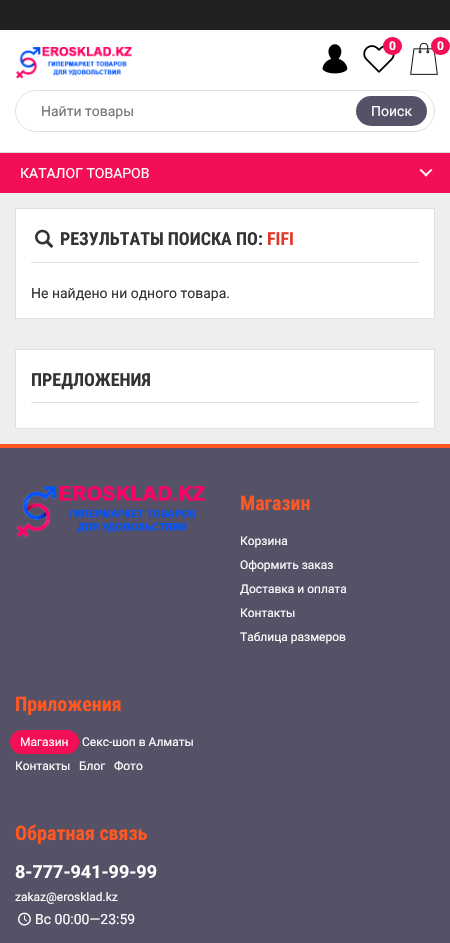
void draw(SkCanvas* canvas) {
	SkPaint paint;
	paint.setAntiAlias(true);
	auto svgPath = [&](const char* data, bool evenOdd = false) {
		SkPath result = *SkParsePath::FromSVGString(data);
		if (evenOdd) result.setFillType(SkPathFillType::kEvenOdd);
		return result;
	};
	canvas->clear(0xffffffff);
	paint.setColor(0xffe0e0e0);
	canvas->drawRect(SkRect::MakeXYWH(0, 152, 450, 1), paint);
	paint.setColor(0xff212121);
	canvas->drawRect(SkRect::MakeXYWH(0, 0, 450, 30), paint);
	canvas->drawImageRect(SkImages::DeferredFromEncodedData(SkData::MakeFromFileName("img1.png")), SkRect::MakeXYWH(322, 44, 26, 30), SkSamplingOptions());
	canvas->drawImageRect(SkImages::DeferredFromEncodedData(SkData::MakeFromFileName("img2.png")), SkRect::MakeXYWH(363, 45, 32, 28), SkSamplingOptions());
	paint.setColor(0xfff20f56);
	canvas->drawRoundRect(SkRect::MakeXYWH(383, 37, 19, 18), 9, 9, paint);
	SkFont f1(fontMgr->matchFamilyStyle("Roboto", SkFontStyle::Bold()), 12);
	f1.setSubpixel(true);
	paint.setColor(0xffffffff);
	canvas->drawString("0", 389, 50, f1, paint);
	canvas->drawImageRect(SkImages::DeferredFromEncodedData(SkData::MakeFromFileName("img3.png")), SkRect::MakeXYWH(410, 42, 28, 33), SkSamplingOptions());
	paint.setColor(0xfff20f56);
	canvas->drawRoundRect(SkRect::MakeXYWH(431, 37, 19, 18), 9, 9, paint);
	paint.setColor(0xffffffff);
	canvas->drawString("0", 437, 50, f1, paint);
	canvas->drawImageRect(SkImages::DeferredFromEncodedData(SkData::MakeFromFileName("img4.png")), SkRect::MakeXYWH(16, 47, 117, 32), SkSamplingOptions());
	paint.setStroke(true);
	paint.setStrokeWidth(1);
	paint.setColor(0xffe0e0e0);
	canvas->drawRoundRect(SkRect::MakeXYWH(15.5, 90.5, 419, 41), 20.5, 20.5, paint);
	SkFont f2(fontMgr->matchFamilyStyle("Roboto", SkFontStyle::Normal()), 14);
	f2.setSubpixel(true);
	paint.setStroke(false);
	paint.setColor(0xff757575);
	canvas->drawString("Найти товары", 41, 116, f2, paint);
	paint.setColor(0xff555267);
	canvas->drawRoundRect(SkRect::MakeXYWH(356, 96, 71, 30), 15, 15, paint);
	paint.setColor(0xffffffff);
	canvas->drawString("Поиск", 371, 116, f2, paint);
	paint.setColor(0xfff20f56);
	canvas->drawRect(SkRect::MakeXYWH(0, 153, 450, 40), paint);
	paint.setColor(0xffffffff);
	canvas->drawString("КАТАЛОГ ТОВАРОВ", 20, 178, f2, paint);
	canvas->drawPath(svgPath("M421 169L427.5 175L426 176.5L419.5 170Z"), paint);
	canvas->drawPath(svgPath("M424.5 175L431 169L432.5 170L426 176.5Z"), paint);
	paint.setColor(0xffeeeeee);
	canvas->drawRect(SkRect::MakeXYWH(0, 193, 450, 251), paint);
	paint.setColor(0xffffffff);
	canvas->drawRect(SkRect::MakeXYWH(15.5, 208.5, 419, 110), paint);
	paint.setStroke(true);
	paint.setColor(0xffe0e0e0);
	canvas->drawRect(SkRect::MakeXYWH(15.5, 208.5, 419, 110), paint);
	paint.setStroke(false);
	canvas->drawRect(SkRect::MakeXYWH(31, 262, 388, 1), paint);
	canvas->drawImageRect(SkImages::DeferredFromEncodedData(SkData::MakeFromFileName("img5.png")), SkRect::MakeXYWH(35, 229, 18, 19), SkSamplingOptions());
	SkFont f3(fontMgr->matchFamilyStyle("Roboto Condensed", SkFontStyle::Bold()), 18);
	f3.setSubpixel(true);
	paint.setColor(0xff333333);
	canvas->drawString("РЕЗУЛЬТАТЫ ПОИСКА ПО:", 60, 245, f3, paint);
	paint.setColor(0xffe03829);
	canvas->drawString("FIFI", 267, 245, f3, paint);
	paint.setColor(0xff333333);
	canvas->drawString("Не найдено ни одного товара.", 31, 298, f2, paint);
	paint.setColor(0xffffffff);
	canvas->drawRoundRect(SkRect::MakeXYWH(15.5, 349.5, 419, 79), 0.5, 0.5, paint);
	paint.setStroke(true);
	paint.setColor(0xffe0e0e0);
	canvas->drawRoundRect(SkRect::MakeXYWH(15.5, 349.5, 419, 79), 0.5, 0.5, paint);
	paint.setStroke(false);
	canvas->drawRect(SkRect::MakeXYWH(31, 402, 388, 1), paint);
	paint.setColor(0xff333333);
	canvas->drawString("ПРЕДЛОЖЕНИЯ", 31, 386, f3, paint);
	paint.setColor(0xff555267);
	canvas->drawRect(SkRect::MakeXYWH(0, 448, 450, 495), paint);
	paint.setColor(0xffff5722);
	canvas->drawRect(SkRect::MakeXYWH(0, 444, 450, 4), paint);
	canvas->drawImageRect(SkImages::DeferredFromEncodedData(SkData::MakeFromFileName("img6.png")), SkRect::MakeXYWH(16, 486, 189, 52), SkSamplingOptions());
	SkFont f4(fontMgr->matchFamilyStyle("Roboto Condensed", SkFontStyle::Bold()), 20);
	f4.setSubpixel(true);
	canvas->drawString("Магазин", 240, 510, f4, paint);
	SkFont f5(fontMgr->matchFamilyStyle("Roboto", SkFontStyle::Normal()), 12);
	f5.setSubpixel(true);
	paint.setColor(0xffffffff);
	canvas->drawString("Корзина", 240, 545, f5, paint);
	canvas->drawString("Оформить заказ", 240, 569, f5, paint);
	canvas->drawString("Доставка и оплата", 240, 593, f5, paint);
	canvas->drawString("Контакты", 240, 617, f5, paint);
	canvas->drawString("Таблица размеров", 240, 641, f5, paint);
	paint.setColor(0xffff5722);
	canvas->drawString("Приложения", 15, 711, f4, paint);
	paint.setColor(0xfff20f56);
	canvas->drawRoundRect(SkRect::MakeXYWH(10, 730, 69, 24), 12, 12, paint);
	paint.setColor(0xffffffff);
	canvas->drawString("Магазин", 20, 746, f5, paint);
	canvas->drawString("Секс-шоп в Алматы", 82, 746, f5, paint);
	canvas->drawString("Контакты", 15, 770, f5, paint);
	canvas->drawString("Блог", 79, 770, f5, paint);
	canvas->drawString("Фото", 114, 770, f5, paint);
	paint.setColor(0xffff5722);
	canvas->drawString("Обратная связь", 15, 840, f4, paint);
	SkFont f6(fontMgr->matchFamilyStyle("Roboto", SkFontStyle::Bold()), 18);
	f6.setSubpixel(true);
	paint.setColor(0xffffffff);
	canvas->drawString("8-777-941-99-99", 15, 878, f6, paint);
	canvas->drawString("zakaz@erosklad.kz", 15, 901, f5, paint);
	canvas->drawImageRect(SkImages::DeferredFromEncodedData(SkData::MakeFromFileName("img7.png")), SkRect::MakeXYWH(18, 912, 13, 14), SkSamplingOptions());
	canvas->drawString("Вс 00:00—23:59", 35, 924, f2, paint);
}
